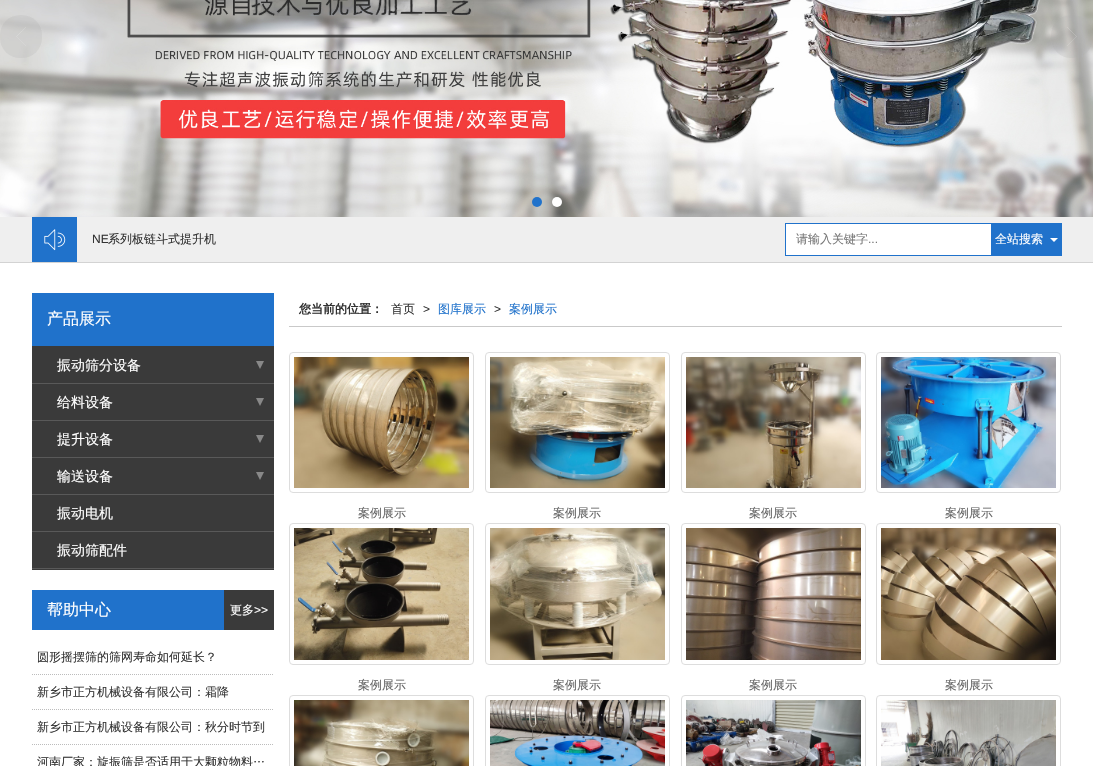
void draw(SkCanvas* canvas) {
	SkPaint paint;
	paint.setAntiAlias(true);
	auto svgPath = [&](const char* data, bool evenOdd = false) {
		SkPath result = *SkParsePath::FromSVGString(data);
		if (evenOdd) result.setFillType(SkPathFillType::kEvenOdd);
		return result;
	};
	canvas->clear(0xffffffff);
	canvas->drawImageRect(SkImages::DeferredFromEncodedData(SkData::MakeFromFileName("img1.png")), SkRect::MakeXYWH(0, 0, 1093, 217), SkSamplingOptions());
	paint.setColor(0x33acabab);
	canvas->drawRoundRect(SkRect::MakeXYWH(0, 15, 42, 43), 20, 20, paint);
	canvas->drawImageRect(SkImages::DeferredFromEncodedData(SkData::MakeFromFileName("img2.png")), SkRect::MakeXYWH(16, 27, 10, 19), SkSamplingOptions());
	canvas->drawRoundRect(SkRect::MakeXYWH(1051, 15, 42, 43), 20, 20, paint);
	canvas->drawImageRect(SkImages::DeferredFromEncodedData(SkData::MakeFromFileName("img3.png")), SkRect::MakeXYWH(1067, 27, 10, 19), SkSamplingOptions());
	paint.setColor(0xff2072cb);
	canvas->drawCircle(537, 202, 5, paint);
	paint.setColor(0xffffffff);
	canvas->drawCircle(557, 202, 5, paint);
	paint.setColor(0xffefefef);
	canvas->drawRect(SkRect::MakeXYWH(0, 217, 1093, 45), paint);
	paint.setColor(0xffd3d3d3);
	canvas->drawRect(SkRect::MakeXYWH(0, 262, 1093, 1), paint);
	paint.setColor(0xff2072cb);
	canvas->drawRect(SkRect::MakeXYWH(32, 217, 45, 45), paint);
	canvas->drawImageRect(SkImages::DeferredFromEncodedData(SkData::MakeFromFileName("img4.png")), SkRect::MakeXYWH(44, 229, 22, 22), SkSamplingOptions());
	SkFont f1(fontMgr->matchFamilyStyle("Liberation Sans", SkFontStyle::Normal()), 12);
	f1.setSubpixel(true);
	paint.setColor(0xff333333);
	canvas->drawString("NE", 92, 243, f1, paint);
	SkFont f2(fontMgr->matchFamilyStyle("WenQuanYi Zen Hei", SkFontStyle(500, SkFontStyle::kNormal_Width, SkFontStyle::kUpright_Slant)), 12);
	f2.setSubpixel(true);
	canvas->drawString("系列板链斗式提升机", 108, 243, f2, paint);
	paint.setColor(0xffffffff);
	canvas->drawRect(SkRect::MakeXYWH(786, 224, 205, 31), paint);
	paint.setStroke(true);
	paint.setStrokeWidth(1);
	paint.setColor(0xff2072cb);
	canvas->drawRect(SkRect::MakeXYWH(785.5, 223.5, 266, 32), paint);
	paint.setStroke(false);
	paint.setColor(0xff777777);
	canvas->drawString("请输入关键字", 796, 243, f2, paint);
	canvas->drawString("...", 868, 243, f1, paint);
	paint.setColor(0xff2072cb);
	canvas->drawRect(SkRect::MakeXYWH(991, 223, 71, 33), paint);
	paint.setColor(0xffffffff);
	canvas->drawString("全站搜索", 995, 243, f2, paint);
	canvas->drawPath(svgPath("M1050 238H1058L1054 242Z"), paint);
	paint.setColor(0xff2072cb);
	canvas->drawRect(SkRect::MakeXYWH(32, 293, 242, 53), paint);
	SkFont f3(fontMgr->matchFamilyStyle("WenQuanYi Zen Hei", SkFontStyle(500, SkFontStyle::kNormal_Width, SkFontStyle::kUpright_Slant)), 16);
	f3.setSubpixel(true);
	paint.setColor(0xffffffff);
	canvas->drawString("产品展示", 47, 324, f3, paint);
	paint.setColor(0xff3a3a3a);
	canvas->drawRect(SkRect::MakeXYWH(32, 346, 242, 224), paint);
	paint.setColor(0xff595959);
	canvas->drawRect(SkRect::MakeXYWH(32, 383, 242, 1), paint);
	SkFont f4(fontMgr->matchFamilyStyle("WenQuanYi Zen Hei", SkFontStyle(500, SkFontStyle::kNormal_Width, SkFontStyle::kUpright_Slant)), 14);
	f4.setSubpixel(true);
	paint.setColor(0xffffffff);
	canvas->drawString("振动筛分设备", 57, 370, f4, paint);
	paint.setColor(0xff888888);
	canvas->drawPath(svgPath("M256 361H264L260 369Z"), paint);
	paint.setColor(0xff595959);
	canvas->drawRect(SkRect::MakeXYWH(32, 420, 242, 1), paint);
	paint.setColor(0xffffffff);
	canvas->drawString("给料设备", 57, 407, f4, paint);
	paint.setColor(0xff888888);
	canvas->drawPath(svgPath("M256 398H264L260 406Z"), paint);
	paint.setColor(0xff595959);
	canvas->drawRect(SkRect::MakeXYWH(32, 457, 242, 1), paint);
	paint.setColor(0xffffffff);
	canvas->drawString("提升设备", 57, 444, f4, paint);
	paint.setColor(0xff888888);
	canvas->drawPath(svgPath("M256 435H264L260 443Z"), paint);
	paint.setColor(0xff595959);
	canvas->drawRect(SkRect::MakeXYWH(32, 494, 242, 1), paint);
	paint.setColor(0xffffffff);
	canvas->drawString("输送设备", 57, 481, f4, paint);
	paint.setColor(0xff888888);
	canvas->drawPath(svgPath("M256 472H264L260 480Z"), paint);
	paint.setColor(0xff595959);
	canvas->drawRect(SkRect::MakeXYWH(32, 531, 242, 1), paint);
	paint.setColor(0xffffffff);
	canvas->drawString("振动电机", 57, 518, f4, paint);
	paint.setColor(0xff595959);
	canvas->drawRect(SkRect::MakeXYWH(32, 568, 242, 1), paint);
	paint.setColor(0xffffffff);
	canvas->drawString("振动筛配件", 57, 555, f4, paint);
	paint.setColor(0xff2072cb);
	canvas->drawRect(SkRect::MakeXYWH(32, 590, 192, 40), paint);
	paint.setColor(0xffffffff);
	canvas->drawString("帮助中心", 47, 615, f3, paint);
	paint.setColor(0xff3a3a3a);
	canvas->drawRect(SkRect::MakeXYWH(224, 590, 50, 40), paint);
	paint.setColor(0xffffffff);
	canvas->drawString("更多", 230, 614, f2, paint);
	canvas->drawString(">>", 254, 614, f1, paint);
	paint.setStroke(true);
	paint.setColor(0xffbcbcbc);
	paint.setPathEffect(SkDashPathEffect::Make({{1, 1}}, 0));
	canvas->drawPath(svgPath("M32 674.5H274"), paint);
	paint.setPathEffect(nullptr);
	paint.setStroke(false);
	paint.setColor(0xff333333);
	canvas->drawString("圆形摇摆筛的筛网寿命如何延长？", 37, 661, f2, paint);
	paint.setStroke(true);
	paint.setColor(0xffbcbcbc);
	paint.setPathEffect(SkDashPathEffect::Make({{1, 1}}, 0));
	canvas->drawPath(svgPath("M32 709.5H274"), paint);
	paint.setPathEffect(nullptr);
	paint.setStroke(false);
	paint.setColor(0xff333333);
	canvas->drawString("新乡市正方机械设备有限公司：霜降", 37, 696, f2, paint);
	paint.setStroke(true);
	paint.setColor(0xffbcbcbc);
	paint.setPathEffect(SkDashPathEffect::Make({{1, 1}}, 0));
	canvas->drawPath(svgPath("M32 744.5H274"), paint);
	paint.setPathEffect(nullptr);
	paint.setStroke(false);
	paint.setColor(0xff333333);
	canvas->drawString("新乡市正方机械设备有限公司：秋分时节到", 37, 731, f2, paint);
	canvas->drawString("河南厂家：旋振筛是否适用于大颗粒物料…", 37, 766, f2, paint);
	paint.setColor(0xffc9c9c9);
	canvas->drawRect(SkRect::MakeXYWH(289, 326, 773, 1), paint);
	SkFont f5(fontMgr->matchFamilyStyle("WenQuanYi Zen Hei", SkFontStyle::Bold()), 12);
	f5.setSubpixel(true);
	paint.setColor(0xff333333);
	canvas->drawString("您当前的位置：", 299, 313, f5, paint);
	canvas->drawString("首页", 391, 313, f2, paint);
	canvas->drawString(">", 423, 313, f1, paint);
	paint.setColor(0xff2072cb);
	canvas->drawString("图库展示", 438, 313, f2, paint);
	paint.setColor(0xff333333);
	canvas->drawString(">", 494, 313, f1, paint);
	paint.setColor(0xff2072cb);
	canvas->drawString("案例展示", 509, 313, f2, paint);
	paint.setStroke(true);
	paint.setColor(0xffdddddd);
	canvas->drawRoundRect(SkRect::MakeXYWH(289.5, 352.5, 184, 140), 3.5, 3.5, paint);
	canvas->drawImageRect(SkImages::DeferredFromEncodedData(SkData::MakeFromFileName("img5.png")), SkRect::MakeXYWH(294, 357, 175, 131), SkSamplingOptions());
	paint.setStroke(false);
	paint.setColor(0xff666666);
	canvas->drawString("案例展示", 358, 517, f2, paint);
	paint.setStroke(true);
	paint.setColor(0xffdddddd);
	canvas->drawRoundRect(SkRect::MakeXYWH(485.5, 352.5, 184, 140), 3.5, 3.5, paint);
	canvas->drawImageRect(SkImages::DeferredFromEncodedData(SkData::MakeFromFileName("img6.png")), SkRect::MakeXYWH(490, 357, 175, 131), SkSamplingOptions());
	paint.setStroke(false);
	paint.setColor(0xff666666);
	canvas->drawString("案例展示", 553, 517, f2, paint);
	paint.setStroke(true);
	paint.setColor(0xffdddddd);
	canvas->drawRoundRect(SkRect::MakeXYWH(681.5, 352.5, 184, 140), 3.5, 3.5, paint);
	canvas->drawImageRect(SkImages::DeferredFromEncodedData(SkData::MakeFromFileName("img7.png")), SkRect::MakeXYWH(686, 357, 175, 131), SkSamplingOptions());
	paint.setStroke(false);
	paint.setColor(0xff666666);
	canvas->drawString("案例展示", 749, 517, f2, paint);
	paint.setStroke(true);
	paint.setColor(0xffdddddd);
	canvas->drawRoundRect(SkRect::MakeXYWH(876.5, 352.5, 184, 140), 3.5, 3.5, paint);
	canvas->drawImageRect(SkImages::DeferredFromEncodedData(SkData::MakeFromFileName("img8.png")), SkRect::MakeXYWH(881, 357, 175, 131), SkSamplingOptions());
	paint.setStroke(false);
	paint.setColor(0xff666666);
	canvas->drawString("案例展示", 945, 517, f2, paint);
	paint.setStroke(true);
	paint.setColor(0xffdddddd);
	canvas->drawRoundRect(SkRect::MakeXYWH(289.5, 523.5, 184, 141), 3.5, 3.5, paint);
	canvas->drawImageRect(SkImages::DeferredFromEncodedData(SkData::MakeFromFileName("img9.png")), SkRect::MakeXYWH(294, 528, 175, 132), SkSamplingOptions());
	paint.setStroke(false);
	paint.setColor(0xff666666);
	canvas->drawString("案例展示", 358, 689, f2, paint);
	paint.setStroke(true);
	paint.setColor(0xffdddddd);
	canvas->drawRoundRect(SkRect::MakeXYWH(485.5, 523.5, 184, 141), 3.5, 3.5, paint);
	canvas->drawImageRect(SkImages::DeferredFromEncodedData(SkData::MakeFromFileName("img10.png")), SkRect::MakeXYWH(490, 528, 175, 132), SkSamplingOptions());
	paint.setStroke(false);
	paint.setColor(0xff666666);
	canvas->drawString("案例展示", 553, 689, f2, paint);
	paint.setStroke(true);
	paint.setColor(0xffdddddd);
	canvas->drawRoundRect(SkRect::MakeXYWH(681.5, 523.5, 184, 141), 3.5, 3.5, paint);
	canvas->drawImageRect(SkImages::DeferredFromEncodedData(SkData::MakeFromFileName("img11.png")), SkRect::MakeXYWH(686, 528, 175, 132), SkSamplingOptions());
	paint.setStroke(false);
	paint.setColor(0xff666666);
	canvas->drawString("案例展示", 749, 689, f2, paint);
	paint.setStroke(true);
	paint.setColor(0xffdddddd);
	canvas->drawRoundRect(SkRect::MakeXYWH(876.5, 523.5, 184, 141), 3.5, 3.5, paint);
	canvas->drawImageRect(SkImages::DeferredFromEncodedData(SkData::MakeFromFileName("img12.png")), SkRect::MakeXYWH(881, 528, 175, 132), SkSamplingOptions());
	paint.setStroke(false);
	paint.setColor(0xff666666);
	canvas->drawString("案例展示", 945, 689, f2, paint);
	paint.setStroke(true);
	paint.setColor(0xffdddddd);
	canvas->drawRoundRect(SkRect::MakeXYWH(289.5, 695.5, 184, 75), 3.5, 3.5, paint);
	canvas->drawImageRect(SkImages::DeferredFromEncodedData(SkData::MakeFromFileName("img13.png")), SkRect::MakeXYWH(294, 700, 175, 66), SkSamplingOptions());
	canvas->drawRoundRect(SkRect::MakeXYWH(485.5, 695.5, 184, 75), 3.5, 3.5, paint);
	canvas->drawImageRect(SkImages::DeferredFromEncodedData(SkData::MakeFromFileName("img14.png")), SkRect::MakeXYWH(490, 700, 175, 66), SkSamplingOptions());
	canvas->drawRoundRect(SkRect::MakeXYWH(681.5, 695.5, 184, 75), 3.5, 3.5, paint);
	canvas->drawImageRect(SkImages::DeferredFromEncodedData(SkData::MakeFromFileName("img15.png")), SkRect::MakeXYWH(686, 700, 175, 66), SkSamplingOptions());
	canvas->drawRoundRect(SkRect::MakeXYWH(876.5, 695.5, 184, 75), 3.5, 3.5, paint);
	canvas->drawImageRect(SkImages::DeferredFromEncodedData(SkData::MakeFromFileName("img16.png")), SkRect::MakeXYWH(881, 700, 175, 66), SkSamplingOptions());
}
